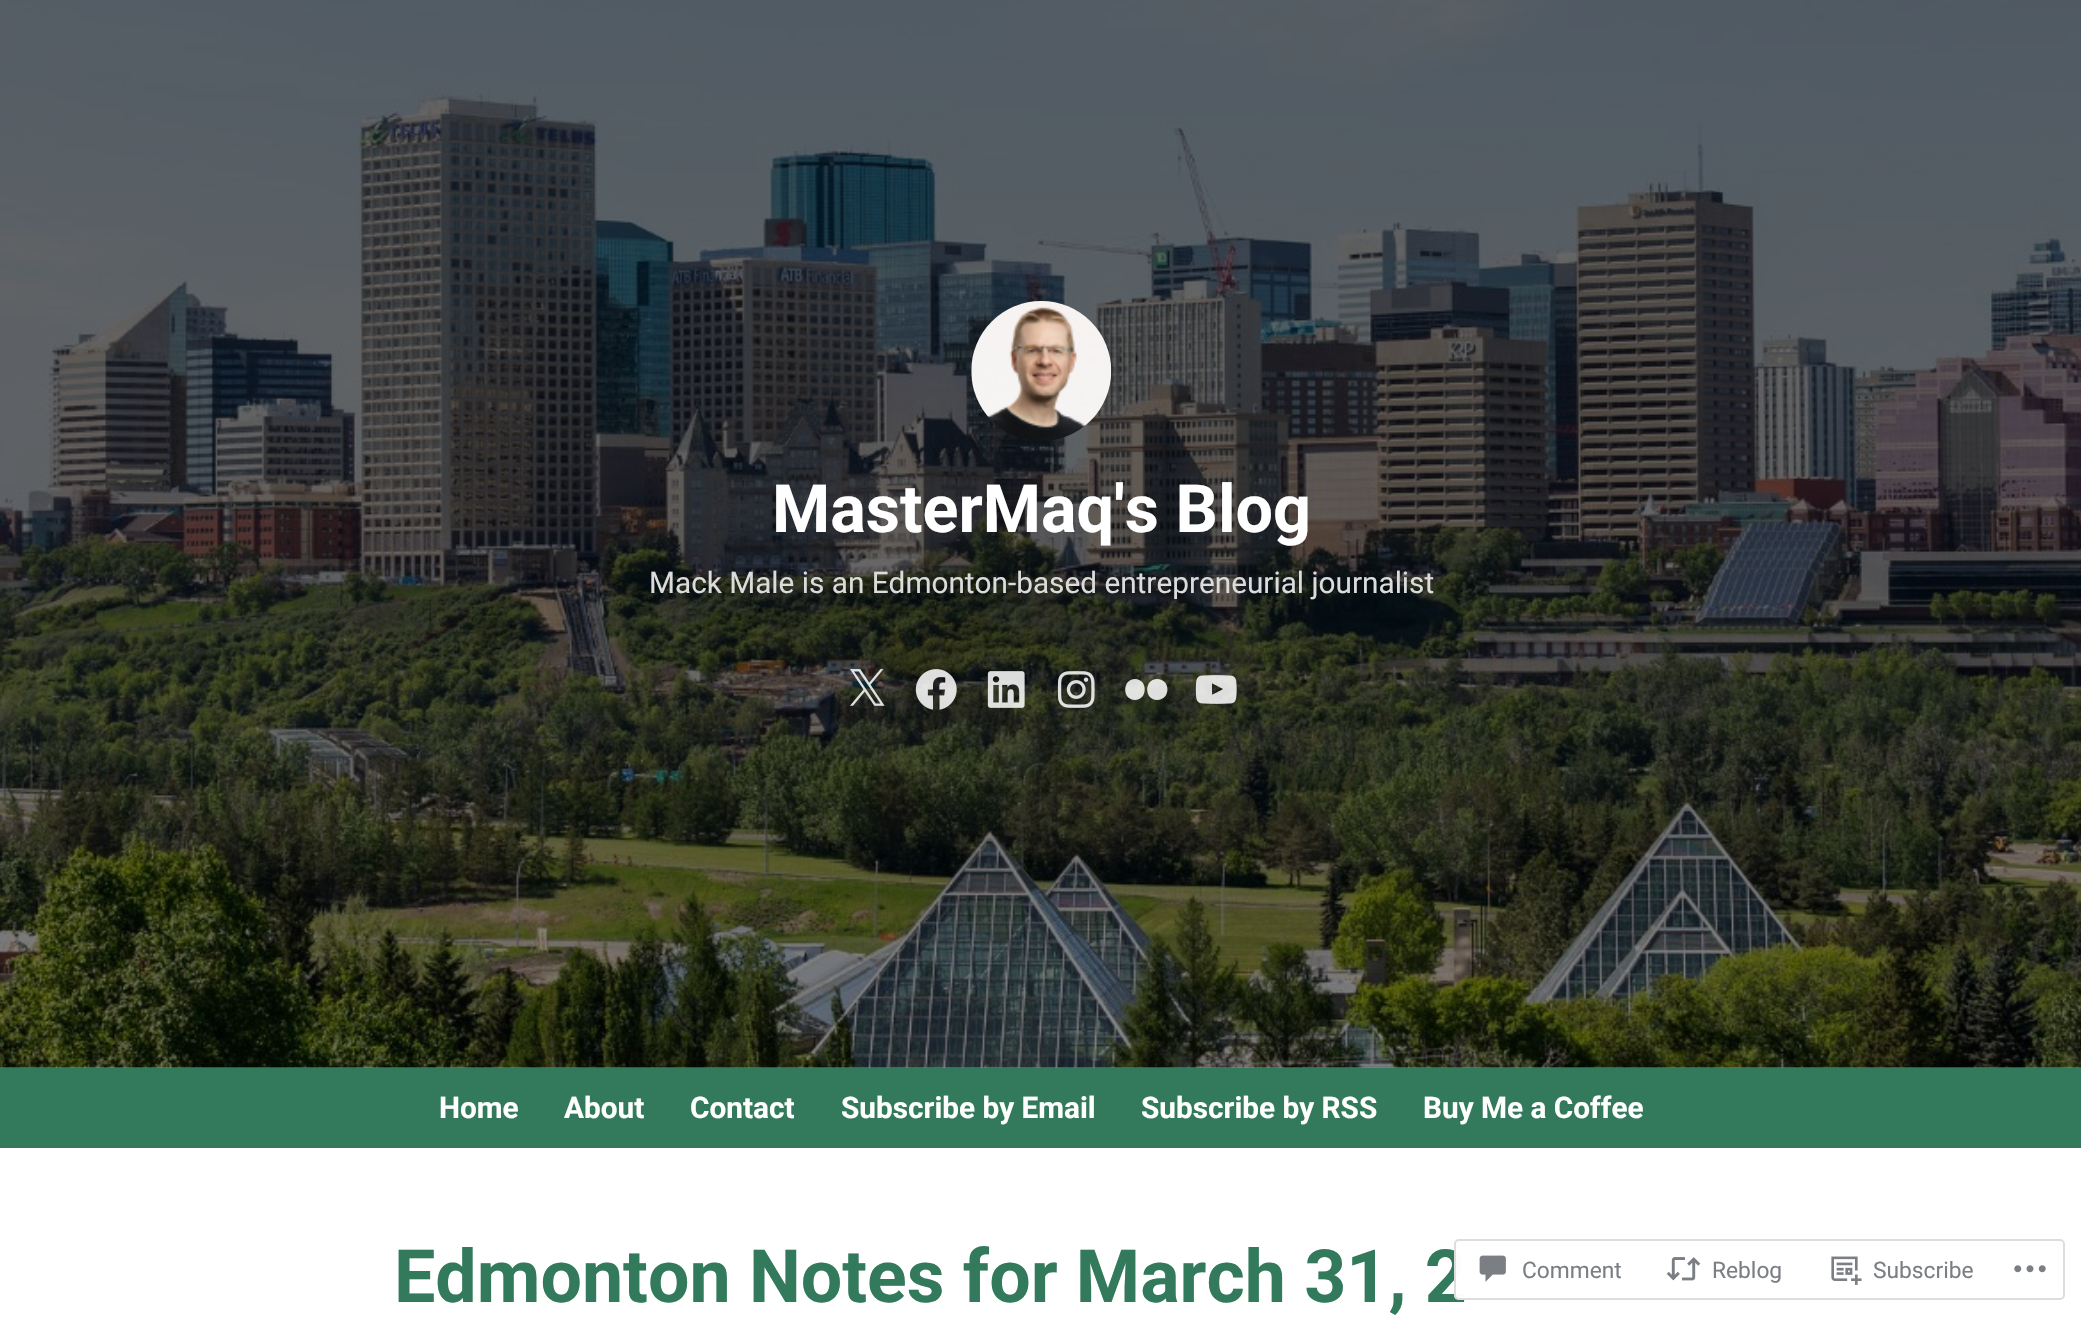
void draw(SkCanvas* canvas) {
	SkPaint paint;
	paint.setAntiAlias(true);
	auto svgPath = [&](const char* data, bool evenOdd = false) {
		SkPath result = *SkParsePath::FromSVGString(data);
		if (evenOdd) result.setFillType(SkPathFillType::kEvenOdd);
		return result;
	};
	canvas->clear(0xffffffff);
	canvas->drawImageRect(SkImages::DeferredFromEncodedData(SkData::MakeFromFileName("img1.png")), SkRect::MakeXYWH(0, 0, 2081, 1068), SkSamplingOptions());
	{
		const SkColor colors[] = {0x99000000, 0x73000000};
		const float stops[] = {0.5, 1};
		const SkPoint ends[] = {{1041, 0}, {1041, 1068}};
		paint.setShader(SkGradientShader::MakeLinear(ends, colors, stops, 2, SkTileMode::kClamp));
		paint.setAlpha(255);
	}
	canvas->drawRect(SkRect::MakeXYWH(0, 0, 2081, 1068), paint);
	canvas->drawImageRect(SkImages::DeferredFromEncodedData(SkData::MakeFromFileName("img2.png")), SkRect::MakeXYWH(971, 301, 141, 140), SkSamplingOptions());
	SkFont f1(fontMgr->matchFamilyStyle("Roboto", SkFontStyle::Bold()), 66.5);
	f1.setSubpixel(true);
	paint.setShader(nullptr);
	paint.setColor(0xffffffff);
	canvas->drawString("MasterMaq's Blog", 772, 532, f1, paint);
	SkFont f2(fontMgr->matchFamilyStyle("Roboto", SkFontStyle::Normal()), 29.75);
	f2.setSubpixel(true);
	paint.setColor(0xffdbdcdb);
	canvas->drawString("Mack Male is an Edmonton-based entrepreneurial journalist", 649, 593, f2, paint);
	canvas->drawImageRect(SkImages::DeferredFromEncodedData(SkData::MakeFromFileName("img3.png")), SkRect::MakeXYWH(850, 669, 35, 37), SkSamplingOptions());
	canvas->drawImageRect(SkImages::DeferredFromEncodedData(SkData::MakeFromFileName("img4.png")), SkRect::MakeXYWH(915, 669, 42, 41), SkSamplingOptions());
	canvas->drawImageRect(SkImages::DeferredFromEncodedData(SkData::MakeFromFileName("img5.png")), SkRect::MakeXYWH(987, 671, 38, 37), SkSamplingOptions());
	canvas->drawImageRect(SkImages::DeferredFromEncodedData(SkData::MakeFromFileName("img6.png")), SkRect::MakeXYWH(1057, 671, 38, 37), SkSamplingOptions());
	paint.setColor(0xd9ffffff);
	canvas->drawPath(svgPath("M1135 679C1122 679 1122 700 1135 700C1148 700 1148 679 1135 679ZM1157 679C1144 679 1144 700 1157 700C1171 700 1171 679 1157 679Z"), paint);
	canvas->drawImageRect(SkImages::DeferredFromEncodedData(SkData::MakeFromFileName("img7.png")), SkRect::MakeXYWH(1195, 675, 42, 29), SkSamplingOptions());
	paint.setColor(0xff337a5c);
	canvas->drawRect(SkRect::MakeXYWH(0, 1068, 2081, 80), paint);
	SkFont f3(fontMgr->matchFamilyStyle("Roboto", SkFontStyle::Bold()), 29.75);
	f3.setSubpixel(true);
	paint.setColor(0xffffffff);
	canvas->drawString("Home", 439, 1118, f3, paint);
	canvas->drawString("About", 564, 1118, f3, paint);
	canvas->drawString("Contact", 690, 1118, f3, paint);
	canvas->drawString("Subscribe by Email", 841, 1118, f3, paint);
	canvas->drawString("Subscribe by RSS", 1141, 1118, f3, paint);
	canvas->drawString("Buy Me a Coffee", 1423, 1118, f3, paint);
	SkFont f4(fontMgr->matchFamilyStyle("Roboto", SkFontStyle::Bold()), 73.5);
	f4.setSubpixel(true);
	paint.setColor(0xff337a5c);
	canvas->drawString("Edmonton Notes for March 31, 2", 394, 1302, f4, paint);
	paint.setColor(0xfaffffff);
	canvas->drawRoundRect(SkRect::MakeXYWH(1454, 1239, 611, 61), 5, 5, paint);
	paint.setStroke(true);
	paint.setStrokeWidth(2);
	paint.setColor(0xfadcdcde);
	canvas->drawRoundRect(SkRect::MakeXYWH(1455, 1240, 609, 59), 4, 4, paint);
	canvas->drawImageRect(SkImages::DeferredFromEncodedData(SkData::MakeFromFileName("img8.png")), SkRect::MakeXYWH(1479, 1255, 27, 27), SkSamplingOptions());
	SkFont f5(fontMgr->matchFamilyStyle("Roboto", SkFontStyle::Normal()), 22.75);
	f5.setSubpixel(true);
	paint.setStroke(false);
	paint.setColor(0xff7b7f84);
	canvas->drawString("Comment", 1522, 1278, f5, paint);
	canvas->drawImageRect(SkImages::DeferredFromEncodedData(SkData::MakeFromFileName("img9.png")), SkRect::MakeXYWH(1666, 1257, 35, 24), SkSamplingOptions());
	canvas->drawString("Reblog", 1712, 1278, f5, paint);
	canvas->drawImageRect(SkImages::DeferredFromEncodedData(SkData::MakeFromFileName("img10.png")), SkRect::MakeXYWH(1831, 1256, 31, 29), SkSamplingOptions());
	canvas->drawString("Subscribe", 1873, 1278, f5, paint);
	canvas->drawImageRect(SkImages::DeferredFromEncodedData(SkData::MakeFromFileName("img11.png")), SkRect::MakeXYWH(2014, 1265, 32, 8), SkSamplingOptions());
}
